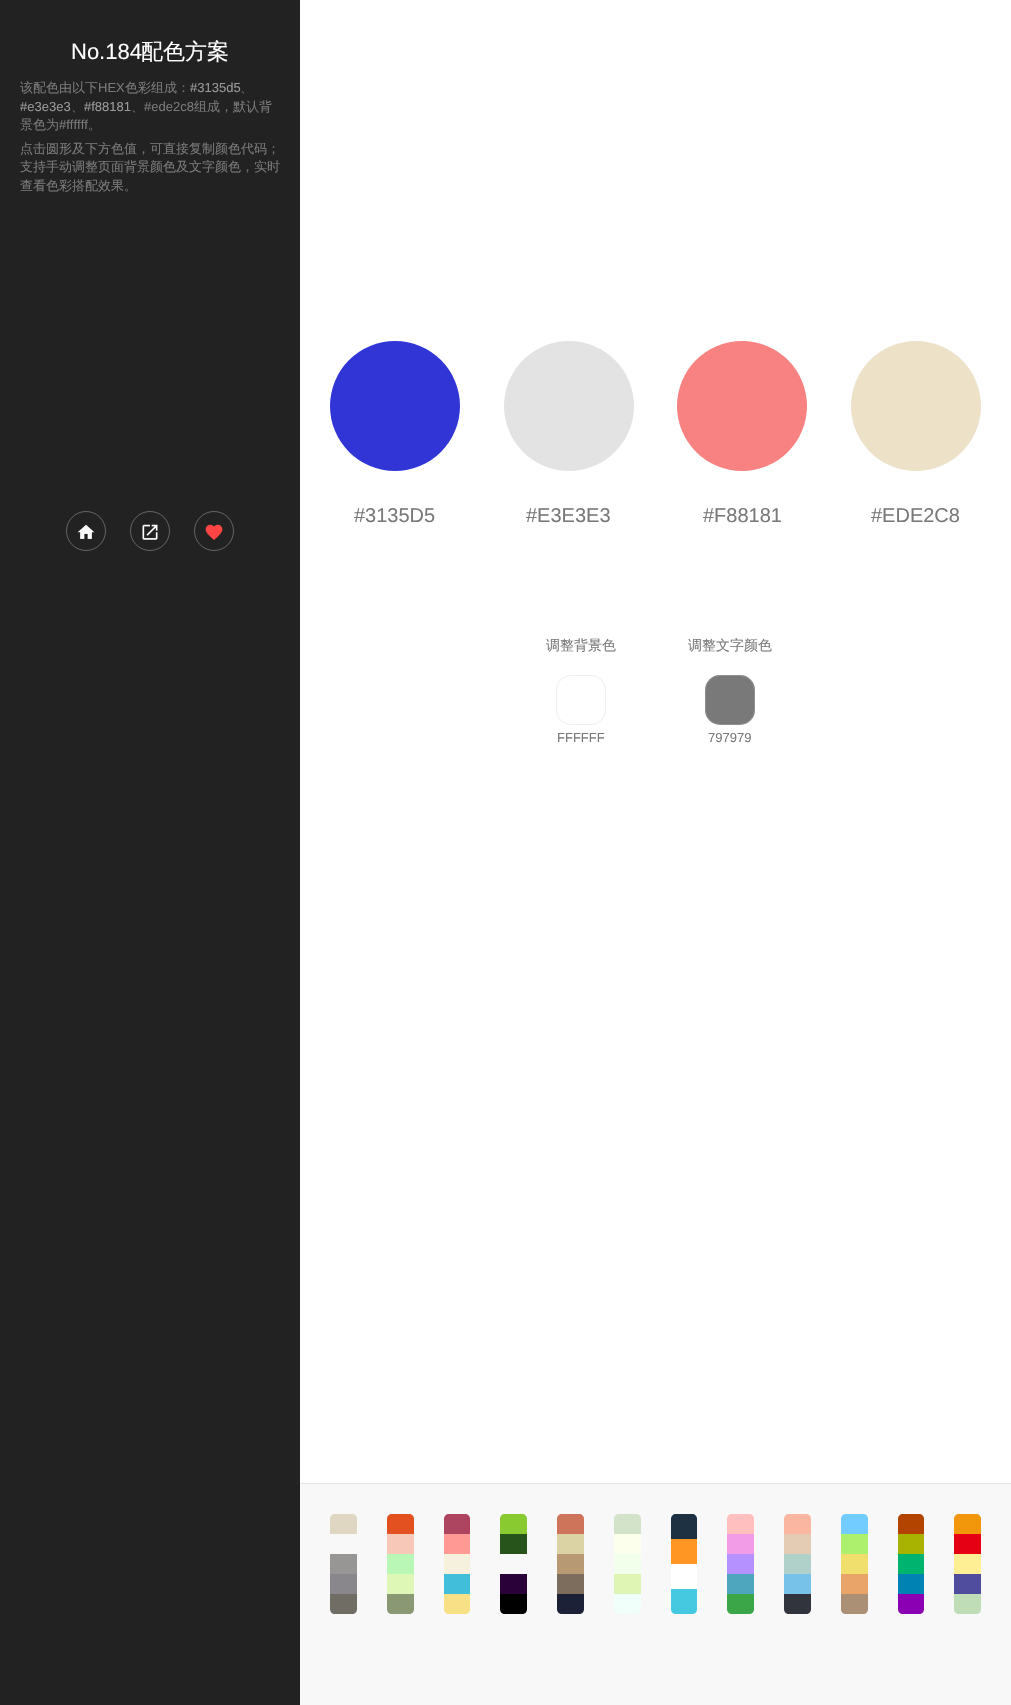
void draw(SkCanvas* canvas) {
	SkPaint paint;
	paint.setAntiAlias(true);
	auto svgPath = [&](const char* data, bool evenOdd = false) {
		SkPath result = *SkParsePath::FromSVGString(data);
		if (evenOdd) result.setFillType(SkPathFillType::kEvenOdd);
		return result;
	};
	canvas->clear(0xffffffff);
	paint.setColor(0xff222222);
	canvas->drawRect(SkRect::MakeXYWH(0, 0, 300, 1705), paint);
	SkFont f1(fontMgr->matchFamilyStyle("Liberation Sans", SkFontStyle::Normal()), 22);
	f1.setSubpixel(true);
	paint.setColor(0xffffffff);
	canvas->drawString("No.184", 71, 59, f1, paint);
	SkFont f2(fontMgr->matchFamilyStyle("WenQuanYi Zen Hei", SkFontStyle(500, SkFontStyle::kNormal_Width, SkFontStyle::kUpright_Slant)), 22);
	f2.setSubpixel(true);
	canvas->drawString("配色方案", 141, 59, f2, paint);
	SkFont f3(fontMgr->matchFamilyStyle("WenQuanYi Zen Hei", SkFontStyle(500, SkFontStyle::kNormal_Width, SkFontStyle::kUpright_Slant)), 13);
	f3.setSubpixel(true);
	paint.setColor(0xff797979);
	canvas->drawString("该配色由以下", 20, 92, f3, paint);
	SkFont f4(fontMgr->matchFamilyStyle("Liberation Sans", SkFontStyle::Normal()), 13);
	f4.setSubpixel(true);
	canvas->drawString("HEX", 98, 92, f4, paint);
	canvas->drawString("色彩组成：", 125, 92, f3, paint);
	paint.setColor(0xff999999);
	canvas->drawString("#3135d5", 190, 92, f4, paint);
	paint.setColor(0xff797979);
	canvas->drawString("、", 240, 92, f3, paint);
	paint.setColor(0xff999999);
	canvas->drawString("#e3e3e3", 20, 111, f4, paint);
	paint.setColor(0xff797979);
	canvas->drawString("、", 71, 111, f3, paint);
	paint.setColor(0xff999999);
	canvas->drawString("#f88181", 84, 111, f4, paint);
	paint.setColor(0xff797979);
	canvas->drawString("、", 131, 111, f3, paint);
	canvas->drawString("#ede2c8", 144, 111, f4, paint);
	canvas->drawString("组成，默认背", 194, 111, f3, paint);
	canvas->drawString("景色为", 20, 129, f3, paint);
	canvas->drawString("#ffffff", 59, 129, f4, paint);
	canvas->drawString("。", 88, 129, f3, paint);
	canvas->drawString("点击圆形及下方色值，可直接复制颜色代码；", 20, 153, f3, paint);
	canvas->drawString("支持手动调整页面背景颜色及文字颜色，实时", 20, 171, f3, paint);
	canvas->drawString("查看色彩搭配效果。", 20, 190, f3, paint);
	paint.setStroke(true);
	paint.setStrokeWidth(1);
	paint.setColor(0xff646464);
	canvas->drawCircle(86, 531, 19.5, paint);
	canvas->drawImageRect(SkImages::DeferredFromEncodedData(SkData::MakeFromFileName("img1.png")), SkRect::MakeXYWH(77, 524, 18, 15), SkSamplingOptions());
	canvas->drawCircle(150, 531, 19.5, paint);
	canvas->drawImageRect(SkImages::DeferredFromEncodedData(SkData::MakeFromFileName("img2.png")), SkRect::MakeXYWH(142, 524, 16, 16), SkSamplingOptions());
	canvas->drawCircle(214, 531, 19.5, paint);
	canvas->drawImageRect(SkImages::DeferredFromEncodedData(SkData::MakeFromFileName("img3.png")), SkRect::MakeXYWH(205, 524, 18, 16), SkSamplingOptions());
	paint.setStroke(false);
	paint.setColor(0xff3135d5);
	canvas->drawCircle(395, 406, 65, paint);
	SkFont f5(fontMgr->matchFamilyStyle("Liberation Sans", SkFontStyle::Normal()), 20);
	f5.setSubpixel(true);
	paint.setColor(0xff797979);
	canvas->drawString("#3135D5", 354, 522, f5, paint);
	paint.setColor(0xffe3e3e3);
	canvas->drawCircle(569, 406, 65, paint);
	paint.setColor(0xff797979);
	canvas->drawString("#E3E3E3", 526, 522, f5, paint);
	paint.setColor(0xfff88181);
	canvas->drawCircle(742, 406, 65, paint);
	paint.setColor(0xff797979);
	canvas->drawString("#F88181", 703, 522, f5, paint);
	paint.setColor(0xffede2c8);
	canvas->drawCircle(916, 406, 65, paint);
	paint.setColor(0xff797979);
	canvas->drawString("#EDE2C8", 871, 522, f5, paint);
	SkFont f6(fontMgr->matchFamilyStyle("WenQuanYi Zen Hei", SkFontStyle(500, SkFontStyle::kNormal_Width, SkFontStyle::kUpright_Slant)), 14);
	f6.setSubpixel(true);
	canvas->drawString("调整背景色", 546, 650, f6, paint);
	paint.setStroke(true);
	paint.setColor(0xffefefef);
	canvas->drawRoundRect(SkRect::MakeXYWH(556.5, 675.5, 49, 49), 14.5, 14.5, paint);
	paint.setStroke(false);
	paint.setColor(0xff797979);
	canvas->drawString("FFFFFF", 557, 742, f4, paint);
	canvas->drawString("调整文字颜色", 688, 650, f6, paint);
	canvas->drawRoundRect(SkRect::MakeXYWH(705, 675, 50, 50), 15, 15, paint);
	paint.setStroke(true);
	paint.setColor(0x4dc8c8c8);
	canvas->drawRoundRect(SkRect::MakeXYWH(705.5, 675.5, 49, 49), 14.5, 14.5, paint);
	paint.setStroke(false);
	paint.setColor(0xff797979);
	canvas->drawString("797979", 708, 742, f4, paint);
	paint.setColor(0xfff8f8f8);
	canvas->drawRect(SkRect::MakeXYWH(300, 1484, 711, 221), paint);
	paint.setColor(0xffe5e5e5);
	canvas->drawRect(SkRect::MakeXYWH(300, 1483, 711, 1), paint);
	paint.setColor(0xffdfd7c2);
	canvas->drawPath(svgPath("M335 1514H352C355 1514 357 1516 357 1519V1534H330V1519C330 1516 332 1514 335 1514Z"), paint);
	paint.setColor(0xff979694);
	canvas->drawRect(SkRect::MakeXYWH(330, 1554, 27, 20), paint);
	paint.setColor(0xff89878c);
	canvas->drawRect(SkRect::MakeXYWH(330, 1574, 27, 20), paint);
	paint.setColor(0xff706d64);
	canvas->drawPath(svgPath("M330 1594H357V1609C357 1612 355 1614 352 1614H335C332 1614 330 1612 330 1609Z"), paint);
	paint.setColor(0xffe35120);
	canvas->drawPath(svgPath("M392 1514H409C412 1514 414 1516 414 1519V1534H387V1519C387 1516 389 1514 392 1514Z"), paint);
	paint.setColor(0xfff7c7b7);
	canvas->drawRect(SkRect::MakeXYWH(387, 1534, 27, 20), paint);
	paint.setColor(0xffb9f7b7);
	canvas->drawRect(SkRect::MakeXYWH(387, 1554, 27, 20), paint);
	paint.setColor(0xffdef7b7);
	canvas->drawRect(SkRect::MakeXYWH(387, 1574, 27, 20), paint);
	paint.setColor(0xff8a9973);
	canvas->drawPath(svgPath("M387 1594H414V1609C414 1612 412 1614 409 1614H392C389 1614 387 1612 387 1609Z"), paint);
	paint.setColor(0xffad4560);
	canvas->drawPath(svgPath("M449 1514H465C468 1514 470 1516 470 1519V1534H444V1519C444 1516 446 1514 449 1514Z"), paint);
	paint.setColor(0xffff9994);
	canvas->drawRect(SkRect::MakeXYWH(444, 1534, 26, 20), paint);
	paint.setColor(0xfff6f1dd);
	canvas->drawRect(SkRect::MakeXYWH(444, 1554, 26, 20), paint);
	paint.setColor(0xff41bfda);
	canvas->drawRect(SkRect::MakeXYWH(444, 1574, 26, 20), paint);
	paint.setColor(0xfff7e085);
	canvas->drawPath(svgPath("M444 1594H470V1609C470 1612 468 1614 465 1614H449C446 1614 444 1612 444 1609Z"), paint);
	paint.setColor(0xff89ca30);
	canvas->drawPath(svgPath("M505 1514H522C525 1514 527 1516 527 1519V1534H500V1519C500 1516 502 1514 505 1514Z"), paint);
	paint.setColor(0xff27541b);
	canvas->drawRect(SkRect::MakeXYWH(500, 1534, 27, 20), paint);
	paint.setColor(0xff2b013a);
	canvas->drawRect(SkRect::MakeXYWH(500, 1574, 27, 20), paint);
	paint.setColor(0xff000000);
	canvas->drawPath(svgPath("M500 1594H527V1609C527 1612 525 1614 522 1614H505C502 1614 500 1612 500 1609Z"), paint);
	paint.setColor(0xffce745a);
	canvas->drawPath(svgPath("M562 1514H579C582 1514 584 1516 584 1519V1534H557V1519C557 1516 559 1514 562 1514Z"), paint);
	paint.setColor(0xffdbd3a4);
	canvas->drawRect(SkRect::MakeXYWH(557, 1534, 27, 20), paint);
	paint.setColor(0xffb79973);
	canvas->drawRect(SkRect::MakeXYWH(557, 1554, 27, 20), paint);
	paint.setColor(0xff7d6d5d);
	canvas->drawRect(SkRect::MakeXYWH(557, 1574, 27, 20), paint);
	paint.setColor(0xff1c2137);
	canvas->drawPath(svgPath("M557 1594H584V1609C584 1612 582 1614 579 1614H562C559 1614 557 1612 557 1609Z"), paint);
	paint.setColor(0xffd3e3ca);
	canvas->drawPath(svgPath("M619 1514H636C639 1514 641 1516 641 1519V1534H614V1519C614 1516 616 1514 619 1514Z"), paint);
	paint.setColor(0xfffcffeb);
	canvas->drawRect(SkRect::MakeXYWH(614, 1534, 27, 20), paint);
	paint.setColor(0xfff2ffeb);
	canvas->drawRect(SkRect::MakeXYWH(614, 1554, 27, 20), paint);
	paint.setColor(0xffdef5b3);
	canvas->drawRect(SkRect::MakeXYWH(614, 1574, 27, 20), paint);
	paint.setColor(0xfff0fffa);
	canvas->drawPath(svgPath("M614 1594H641V1609C641 1612 639 1614 636 1614H619C616 1614 614 1612 614 1609Z"), paint);
	paint.setColor(0xff1e3143);
	canvas->drawPath(svgPath("M676 1514H692C695 1514 697 1516 697 1519V1539H671V1519C671 1516 673 1514 676 1514Z"), paint);
	paint.setColor(0xffff9523);
	canvas->drawRect(SkRect::MakeXYWH(671, 1539, 26, 25), paint);
	paint.setColor(0xffffffff);
	canvas->drawRect(SkRect::MakeXYWH(671, 1564, 26, 25), paint);
	paint.setColor(0xff44c9e1);
	canvas->drawPath(svgPath("M671 1589H697V1609C697 1612 695 1614 692 1614H676C673 1614 671 1612 671 1609Z"), paint);
	paint.setColor(0xffffbfbf);
	canvas->drawPath(svgPath("M732 1514H749C752 1514 754 1516 754 1519V1534H727V1519C727 1516 729 1514 732 1514Z"), paint);
	paint.setColor(0xfff29be7);
	canvas->drawRect(SkRect::MakeXYWH(727, 1534, 27, 20), paint);
	paint.setColor(0xffb491ff);
	canvas->drawRect(SkRect::MakeXYWH(727, 1554, 27, 20), paint);
	paint.setColor(0xff4da6bd);
	canvas->drawRect(SkRect::MakeXYWH(727, 1574, 27, 20), paint);
	paint.setColor(0xff3aa647);
	canvas->drawPath(svgPath("M727 1594H754V1609C754 1612 752 1614 749 1614H732C729 1614 727 1612 727 1609Z"), paint);
	paint.setColor(0xfffab6a0);
	canvas->drawPath(svgPath("M789 1514H806C809 1514 811 1516 811 1519V1534H784V1519C784 1516 786 1514 789 1514Z"), paint);
	paint.setColor(0xffe3ccb3);
	canvas->drawRect(SkRect::MakeXYWH(784, 1534, 27, 20), paint);
	paint.setColor(0xffb0d1ca);
	canvas->drawRect(SkRect::MakeXYWH(784, 1554, 27, 20), paint);
	paint.setColor(0xff76c2e9);
	canvas->drawRect(SkRect::MakeXYWH(784, 1574, 27, 20), paint);
	paint.setColor(0xff31343d);
	canvas->drawPath(svgPath("M784 1594H811V1609C811 1612 809 1614 806 1614H789C786 1614 784 1612 784 1609Z"), paint);
	paint.setColor(0xff73ccff);
	canvas->drawPath(svgPath("M846 1514H863C866 1514 868 1516 868 1519V1534H841V1519C841 1516 843 1514 846 1514Z"), paint);
	paint.setColor(0xffacf06d);
	canvas->drawRect(SkRect::MakeXYWH(841, 1534, 27, 20), paint);
	paint.setColor(0xfff0df6d);
	canvas->drawRect(SkRect::MakeXYWH(841, 1554, 27, 20), paint);
	paint.setColor(0xffe8a469);
	canvas->drawRect(SkRect::MakeXYWH(841, 1574, 27, 20), paint);
	paint.setColor(0xffac9076);
	canvas->drawPath(svgPath("M841 1594H868V1609C868 1612 866 1614 863 1614H846C843 1614 841 1612 841 1609Z"), paint);
	paint.setColor(0xffb34400);
	canvas->drawPath(svgPath("M903 1514H919C922 1514 924 1516 924 1519V1534H898V1519C898 1516 900 1514 903 1514Z"), paint);
	paint.setColor(0xffa7b300);
	canvas->drawRect(SkRect::MakeXYWH(898, 1534, 26, 20), paint);
	paint.setColor(0xff00b36e);
	canvas->drawRect(SkRect::MakeXYWH(898, 1554, 26, 20), paint);
	paint.setColor(0xff0083b3);
	canvas->drawRect(SkRect::MakeXYWH(898, 1574, 26, 20), paint);
	paint.setColor(0xff8c00b3);
	canvas->drawPath(svgPath("M898 1594H924V1609C924 1612 922 1614 919 1614H903C900 1614 898 1612 898 1609Z"), paint);
	paint.setColor(0xfff2960c);
	canvas->drawPath(svgPath("M959 1514H976C979 1514 981 1516 981 1519V1534H954V1519C954 1516 956 1514 959 1514Z"), paint);
	paint.setColor(0xffe60013);
	canvas->drawRect(SkRect::MakeXYWH(954, 1534, 27, 20), paint);
	paint.setColor(0xffffef94);
	canvas->drawRect(SkRect::MakeXYWH(954, 1554, 27, 20), paint);
	paint.setColor(0xff504c9e);
	canvas->drawRect(SkRect::MakeXYWH(954, 1574, 27, 20), paint);
	paint.setColor(0xffbfdeb8);
	canvas->drawPath(svgPath("M954 1594H981V1609C981 1612 979 1614 976 1614H959C956 1614 954 1612 954 1609Z"), paint);
}
